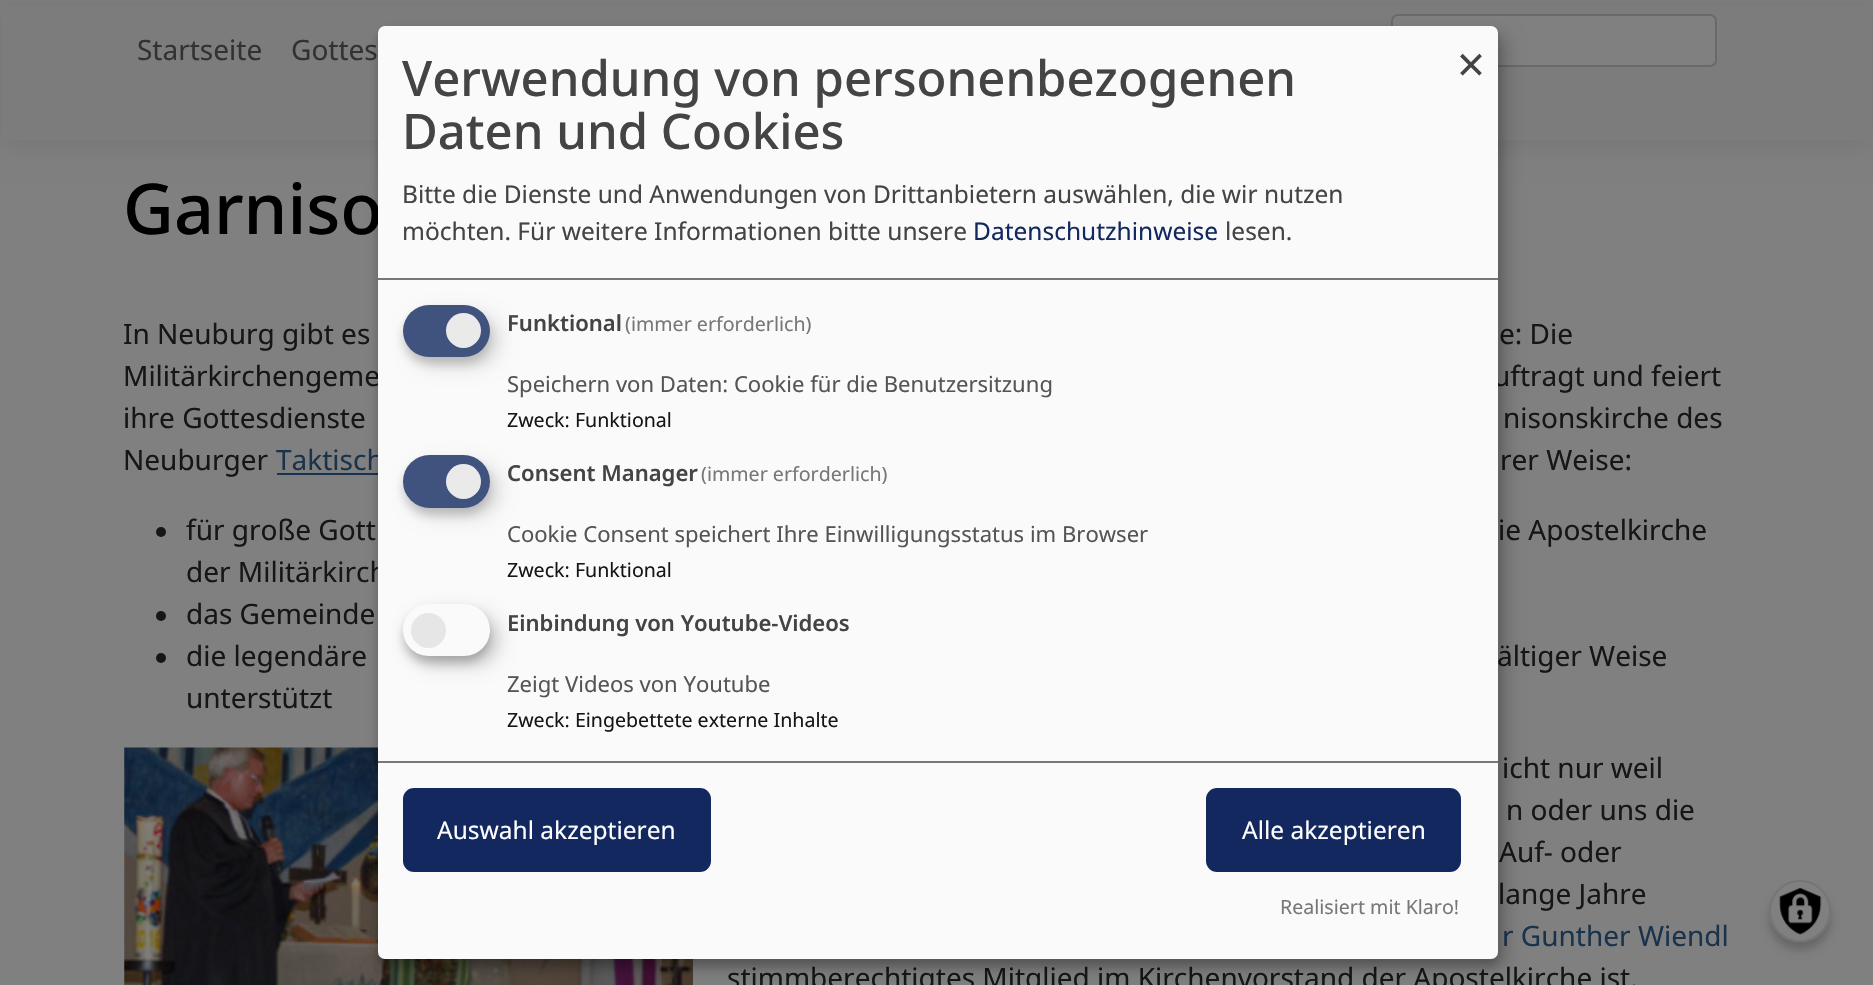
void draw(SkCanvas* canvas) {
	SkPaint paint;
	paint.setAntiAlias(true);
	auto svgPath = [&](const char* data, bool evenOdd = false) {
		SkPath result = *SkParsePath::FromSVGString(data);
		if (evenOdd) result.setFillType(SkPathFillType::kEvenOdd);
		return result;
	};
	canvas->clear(0xff808080);
	paint.setColor(0x17000000);
	paint.setMaskFilter(SkMaskFilter::MakeBlur(kNormal_SkBlurStyle, 13));
	canvas->drawRect(SkRect::MakeXYWH(0, 4, 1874, 140), paint);
	paint.setMaskFilter(nullptr);
	paint.setColor(0xff7c7c7c);
	canvas->drawRect(SkRect::MakeXYWH(2, 6, 1870, 134), paint);
	SkFont f1(fontMgr->matchFamilyStyle("Noto Sans", SkFontStyle::Normal()), 28);
	f1.setSubpixel(true);
	paint.setColor(0xff323232);
	canvas->drawString("Startseite", 137, 60, f1, paint);
	canvas->drawString("Gottes", 291, 60, f1, paint);
	paint.setColor(0xff808080);
	canvas->drawRoundRect(SkRect::MakeXYWH(1392, 15, 324, 51), 6, 6, paint);
	paint.setStroke(true);
	paint.setStrokeWidth(2);
	paint.setColor(0xff696969);
	canvas->drawRoundRect(SkRect::MakeXYWH(1392, 15, 324, 51), 6, 6, paint);
	SkFont f2(fontMgr->matchFamilyStyle("Noto Sans", SkFontStyle(500, SkFontStyle::kNormal_Width, SkFontStyle::kUpright_Slant)), 70);
	f2.setSubpixel(true);
	paint.setStroke(false);
	paint.setColor(0xff000000);
	canvas->drawString("Garniso", 123, 234, f2, paint);
	paint.setColor(0xff151616);
	canvas->drawString("In Neuburg gibt es", 123, 344, f1, paint);
	canvas->drawString("e: Die", 1499, 344, f1, paint);
	canvas->drawString("Militärkirchengeme", 123, 386, f1, paint);
	canvas->drawString("uftragt und feiert", 1493, 386, f1, paint);
	canvas->drawString("ihre Gottesdienste", 123, 428, f1, paint);
	canvas->drawString("nisonskirche des", 1503, 428, f1, paint);
	canvas->drawString("Neuburger", 123, 470, f1, paint);
	paint.setColor(0xff1a334d);
	canvas->drawString("Taktisch", 276, 470, f1, paint);
	canvas->drawRect(SkRect::MakeXYWH(277, 473, 101, 2), paint);
	paint.setColor(0xff151616);
	canvas->drawString("rer Weise:", 1500, 470, f1, paint);
	canvas->drawCircle(161, 532, 5, paint);
	canvas->drawString("für große Gott", 186, 540, f1, paint);
	canvas->drawString("ie Apostelkirche", 1498, 540, f1, paint);
	canvas->drawString("der Militärkirch", 186, 582, f1, paint);
	canvas->drawCircle(161, 616, 5, paint);
	canvas->drawString("das Gemeinde", 186, 624, f1, paint);
	canvas->drawCircle(161, 658, 5, paint);
	canvas->drawString("die legendäre", 186, 666, f1, paint);
	canvas->drawString("ältiger Weise", 1497, 666, f1, paint);
	canvas->drawString("unterstützt", 186, 708, f1, paint);
	canvas->drawImageRect(SkImages::DeferredFromEncodedData(SkData::MakeFromFileName("img1.png")), SkRect::MakeXYWH(124, 747, 569, 238), SkSamplingOptions());
	canvas->drawString("icht nur weil", 1502, 778, f1, paint);
	canvas->drawString("n oder uns die", 1506, 820, f1, paint);
	canvas->drawString("Auf- oder", 1499, 862, f1, paint);
	canvas->drawString("lange Jahre", 1498, 904, f1, paint);
	paint.setColor(0xff1a334d);
	canvas->drawString("r Gunther Wiendl", 1502, 946, f1, paint);
	paint.setColor(0xff151616);
	canvas->drawString("stimmberechtigtes Mitglied im Kirchenvorstand der Apostelkirche ist.", 727, 988, f1, paint);
	paint.setColor(0x30000000);
	paint.setMaskFilter(SkMaskFilter::MakeBlur(kNormal_SkBlurStyle, 9));
	canvas->drawRoundRect(SkRect::MakeXYWH(387, 35, 1120, 933), 7, 7, paint);
	paint.setMaskFilter(nullptr);
	paint.setColor(0x33000000);
	paint.setMaskFilter(SkMaskFilter::MakeBlur(kNormal_SkBlurStyle, 5));
	canvas->drawRoundRect(SkRect::MakeXYWH(378, 33, 1120, 933), 7, 7, paint);
	paint.setMaskFilter(nullptr);
	paint.setColor(0xfffafafa);
	canvas->drawRoundRect(SkRect::MakeXYWH(378, 26, 1120, 933), 7, 7, paint);
	paint.setColor(0xff777777);
	canvas->drawRect(SkRect::MakeXYWH(378, 278, 1120, 2), paint);
	SkFont f3(fontMgr->matchFamilyStyle("Noto Sans", SkFontStyle(500, SkFontStyle::kNormal_Width, SkFontStyle::kUpright_Slant)), 49);
	f3.setSubpixel(true);
	paint.setColor(0xff444444);
	canvas->drawString("Verwendung von personenbezogenen", 402, 96, f3, paint);
	canvas->drawString("Daten und Cookies", 402, 149, f3, paint);
	SkFont f4(fontMgr->matchFamilyStyle("Noto Sans", SkFontStyle::Normal()), 24.5);
	f4.setSubpixel(true);
	canvas->drawString("Bitte die Dienste und Anwendungen von Drittanbietern auswählen, die wir nutzen", 402, 203, f4, paint);
	canvas->drawString("möchten. Für weitere Informationen bitte unsere", 402, 240, f4, paint);
	paint.setColor(0xff12285f);
	canvas->drawString("Datenschutzhinweise", 973, 240, f4, paint);
	paint.setColor(0xff444444);
	canvas->drawString("lesen.", 1225, 240, f4, paint);
	SkFont f5(fontMgr->matchFamilyStyle("Noto Sans", SkFontStyle::Normal()), 49);
	f5.setSubpixel(true);
	canvas->drawString("×", 1457, 82, f5, paint);
	paint.setColor(0x26000000);
	paint.setMaskFilter(SkMaskFilter::MakeBlur(kNormal_SkBlurStyle, 9));
	canvas->drawRoundRect(SkRect::MakeXYWH(411, 313, 88, 53), 26.5, 26.5, paint);
	paint.setMaskFilter(nullptr);
	paint.setColor(0x33323232);
	paint.setMaskFilter(SkMaskFilter::MakeBlur(kNormal_SkBlurStyle, 5));
	canvas->drawRoundRect(SkRect::MakeXYWH(403, 312, 87, 52), 26, 26, paint);
	paint.setMaskFilter(nullptr);
	paint.setColor(0xff40527e);
	canvas->drawRoundRect(SkRect::MakeXYWH(403, 305, 87, 52), 26, 26, paint);
	paint.setColor(0xffeaeaea);
	canvas->drawCircle(463.5, 330.5, 17.5, paint);
	SkFont f6(fontMgr->matchFamilyStyle("Noto Sans", SkFontStyle(600, SkFontStyle::kNormal_Width, SkFontStyle::kUpright_Slant)), 22.05);
	f6.setSubpixel(true);
	paint.setColor(0xff444444);
	canvas->drawString("Funktional", 507, 331, f6, paint);
	SkFont f7(fontMgr->matchFamilyStyle("Noto Sans", SkFontStyle::Normal()), 19.6);
	f7.setSubpixel(true);
	paint.setColor(0xff777777);
	canvas->drawString("(immer erforderlich)", 625, 331, f7, paint);
	SkFont f8(fontMgr->matchFamilyStyle("Noto Sans", SkFontStyle::Normal()), 22.05);
	f8.setSubpixel(true);
	paint.setColor(0xff555555);
	canvas->drawString("Speichern von Daten: Cookie für die Benutzersitzung", 507, 392, f8, paint);
	paint.setColor(0xff151616);
	canvas->drawString("Zweck: Funktional", 507, 427, f7, paint);
	paint.setColor(0x26000000);
	paint.setMaskFilter(SkMaskFilter::MakeBlur(kNormal_SkBlurStyle, 9));
	canvas->drawRoundRect(SkRect::MakeXYWH(411, 464, 88, 52), 26, 26, paint);
	paint.setMaskFilter(nullptr);
	paint.setColor(0x33323232);
	paint.setMaskFilter(SkMaskFilter::MakeBlur(kNormal_SkBlurStyle, 5));
	canvas->drawRoundRect(SkRect::MakeXYWH(403, 462, 87, 53), 26.5, 26.5, paint);
	paint.setMaskFilter(nullptr);
	paint.setColor(0xff40527e);
	canvas->drawRoundRect(SkRect::MakeXYWH(403, 455, 87, 53), 26.5, 26.5, paint);
	paint.setColor(0xffeaeaea);
	canvas->drawCircle(463.5, 481.5, 17.5, paint);
	paint.setColor(0xff444444);
	canvas->drawString("Consent Manager", 507, 481, f6, paint);
	paint.setColor(0xff777777);
	canvas->drawString("(immer erforderlich)", 701, 481, f7, paint);
	paint.setColor(0xff555555);
	canvas->drawString("Cookie Consent speichert Ihre Einwilligungsstatus im Browser", 507, 542, f8, paint);
	paint.setColor(0xff151616);
	canvas->drawString("Zweck: Funktional", 507, 577, f7, paint);
	canvas->save();
	canvas->clipPath(svgPath("M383 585H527V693H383ZM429 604H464C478.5 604 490 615.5 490 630C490 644.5 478.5 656 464 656H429C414.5 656 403 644.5 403 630C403 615.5 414.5 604 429 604Z", true), true);
	paint.setColor(0x30000000);
	paint.setMaskFilter(SkMaskFilter::MakeBlur(kNormal_SkBlurStyle, 9));
	canvas->drawRoundRect(SkRect::MakeXYWH(411, 613, 88, 52), 26, 26, paint);
	paint.setMaskFilter(nullptr);
	canvas->restore();
	canvas->save();
	canvas->clipPath(svgPath("M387 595H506V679H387ZM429 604H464C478.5 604 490 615.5 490 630C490 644.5 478.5 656 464 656H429C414.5 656 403 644.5 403 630C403 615.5 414.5 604 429 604Z", true), true);
	paint.setColor(0x33000000);
	paint.setMaskFilter(SkMaskFilter::MakeBlur(kNormal_SkBlurStyle, 5));
	canvas->drawRoundRect(SkRect::MakeXYWH(403, 611, 87, 52), 26, 26, paint);
	paint.setMaskFilter(nullptr);
	canvas->restore();
	paint.setColor(0xffe6e6e6);
	canvas->drawCircle(428.5, 630.5, 17.5, paint);
	paint.setColor(0xff444444);
	canvas->drawString("Einbindung von Youtube-Videos", 507, 631, f6, paint);
	paint.setColor(0xff555555);
	canvas->drawString("Zeigt Videos von Youtube", 507, 692, f8, paint);
	paint.setColor(0xff151616);
	canvas->drawString("Zweck: Eingebettete externe Inhalte", 507, 727, f7, paint);
	paint.setColor(0xff777777);
	canvas->drawRect(SkRect::MakeXYWH(378, 761, 1120, 2), paint);
	paint.setColor(0xff12285f);
	canvas->drawRoundRect(SkRect::MakeXYWH(405.5, 790.5, 303, 79), 8.5, 8.5, paint);
	paint.setStroke(true);
	paint.setStrokeWidth(5);
	canvas->drawRoundRect(SkRect::MakeXYWH(405.5, 790.5, 303, 79), 8.5, 8.5, paint);
	paint.setStroke(false);
	paint.setColor(0xffffffff);
	canvas->drawString("Auswahl akzeptieren", 437, 839, f4, paint);
	paint.setColor(0xff12285f);
	canvas->drawRoundRect(SkRect::MakeXYWH(1208.5, 790.5, 250, 79), 8.5, 8.5, paint);
	paint.setStroke(true);
	canvas->drawRoundRect(SkRect::MakeXYWH(1208.5, 790.5, 250, 79), 8.5, 8.5, paint);
	paint.setStroke(false);
	paint.setColor(0xffffffff);
	canvas->drawString("Alle akzeptieren", 1242, 839, f4, paint);
	paint.setColor(0xff777777);
	canvas->drawString("Realisiert mit Klaro!", 1280, 914, f7, paint);
	paint.setColor(0x33000000);
	paint.setMaskFilter(SkMaskFilter::MakeBlur(kNormal_SkBlurStyle, 4.5));
	canvas->drawRoundRect(SkRect::MakeXYWH(1769, 889, 62, 61), 30.5, 30.5, paint);
	paint.setMaskFilter(nullptr);
	paint.setColor(0xff808080);
	canvas->drawCircle(1800, 911, 31, paint);
	canvas->drawImageRect(SkImages::DeferredFromEncodedData(SkData::MakeFromFileName("img2.png")), SkRect::MakeXYWH(1779, 887, 43, 48), SkSamplingOptions());
	paint.setStroke(true);
	paint.setStrokeWidth(2);
	paint.setColor(0xff757575);
	canvas->drawCircle(1800, 911, 30, paint);
}
